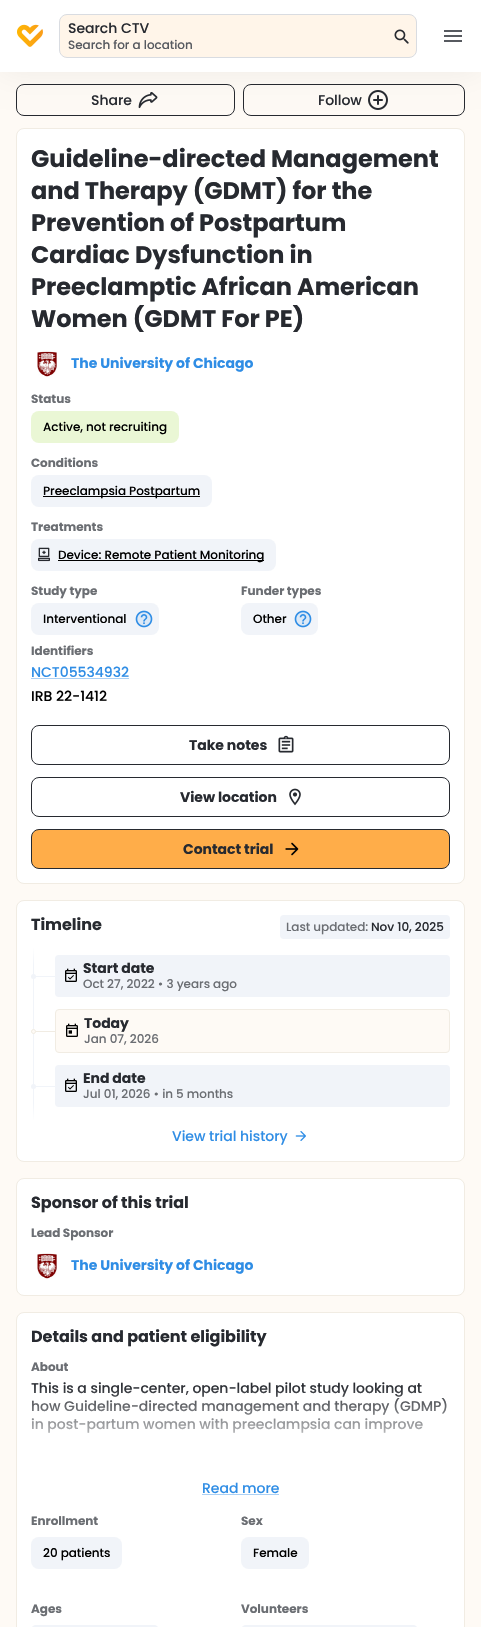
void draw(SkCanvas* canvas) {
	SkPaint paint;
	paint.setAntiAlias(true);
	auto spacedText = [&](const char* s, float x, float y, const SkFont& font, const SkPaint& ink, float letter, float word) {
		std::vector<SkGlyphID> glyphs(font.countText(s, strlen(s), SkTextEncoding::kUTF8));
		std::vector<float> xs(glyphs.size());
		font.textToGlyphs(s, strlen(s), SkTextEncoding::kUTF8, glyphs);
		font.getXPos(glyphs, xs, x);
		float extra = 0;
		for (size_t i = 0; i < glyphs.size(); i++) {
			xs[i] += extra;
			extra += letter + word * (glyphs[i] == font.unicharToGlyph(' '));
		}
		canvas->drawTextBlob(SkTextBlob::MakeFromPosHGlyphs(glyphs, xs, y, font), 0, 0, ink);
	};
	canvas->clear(0xfffefaf5);
	paint.setStroke(true);
	paint.setStrokeWidth(1);
	paint.setColor(0xff272a30);
	canvas->drawRoundRect(SkRect::MakeXYWH(16.5, 84.5, 218, 31), 7.5, 7.5, paint);
	canvas->drawImageRect(SkImages::DeferredFromEncodedData(SkData::MakeFromFileName("img4.png")), SkRect::MakeXYWH(138, 92, 20, 17), SkSamplingOptions());
	canvas->drawRoundRect(SkRect::MakeXYWH(243.5, 84.5, 221, 31), 7.5, 7.5, paint);
	canvas->drawImageRect(SkImages::DeferredFromEncodedData(SkData::MakeFromFileName("img5.png")), SkRect::MakeXYWH(368, 90, 20, 20), SkSamplingOptions());
	paint.setStroke(false);
	paint.setColor(0x0f000000);
	paint.setMaskFilter(SkMaskFilter::MakeBlur(kNormal_SkBlurStyle, 16));
	canvas->drawRect(SkRect::MakeXYWH(0, 0, 481, 72), paint);
	paint.setMaskFilter(nullptr);
	paint.setColor(0xffffffff);
	canvas->drawRect(SkRect::MakeXYWH(0, 0, 481, 72), paint);
	canvas->drawImageRect(SkImages::DeferredFromEncodedData(SkData::MakeFromFileName("img1.png")), SkRect::MakeXYWH(17, 24, 26, 23), SkSamplingOptions());
	paint.setColor(0xfffff5e9);
	canvas->drawRoundRect(SkRect::MakeXYWH(59.5, 14.5, 357, 43), 7.5, 7.5, paint);
	paint.setStroke(true);
	paint.setColor(0xffd9dce1);
	canvas->drawRoundRect(SkRect::MakeXYWH(59.5, 14.5, 357, 43), 7.5, 7.5, paint);
	SkFont f1(fontMgr->matchFamilyStyle("Poppins", SkFontStyle(500, SkFontStyle::kNormal_Width, SkFontStyle::kUpright_Slant)), 14);
	f1.setSubpixel(true);
	paint.setStroke(false);
	paint.setColor(0xff272a30);
	spacedText("Search CTV", 68, 33, f1, paint, -0.03, 0);
	SkFont f2(fontMgr->matchFamilyStyle("Poppins", SkFontStyle(500, SkFontStyle::kNormal_Width, SkFontStyle::kUpright_Slant)), 12);
	f2.setSubpixel(true);
	paint.setColor(0xff575a60);
	spacedText("Search for a location", 68, 49, f2, paint, -0.03, 0);
	canvas->drawImageRect(SkImages::DeferredFromEncodedData(SkData::MakeFromFileName("img2.png")), SkRect::MakeXYWH(394, 29, 15, 15), SkSamplingOptions());
	canvas->drawImageRect(SkImages::DeferredFromEncodedData(SkData::MakeFromFileName("img3.png")), SkRect::MakeXYWH(444, 30, 18, 12), SkSamplingOptions());
	paint.setColor(0xff272a30);
	spacedText("Share", 91, 105, f1, paint, -0.03, 0);
	spacedText("Follow", 318, 105, f1, paint, -0.03, 0);
	paint.setColor(0xffffffff);
	canvas->drawRoundRect(SkRect::MakeXYWH(16.5, 128.5, 448, 755), 7.5, 7.5, paint);
	paint.setStroke(true);
	paint.setColor(0xfff1ece3);
	canvas->drawRoundRect(SkRect::MakeXYWH(16.5, 128.5, 448, 755), 7.5, 7.5, paint);
	SkFont f3(fontMgr->matchFamilyStyle("Poppins", SkFontStyle::Bold()), 24);
	f3.setSubpixel(true);
	paint.setStroke(false);
	paint.setColor(0xff272a30);
	spacedText("Guideline-directed Management", 31, 167, f3, paint, -0.03, 0);
	spacedText("and Therapy (GDMT) for the", 31, 199, f3, paint, -0.03, 0);
	spacedText("Prevention of Postpartum", 31, 231, f3, paint, -0.03, 0);
	spacedText("Cardiac Dysfunction in", 31, 263, f3, paint, -0.03, 0);
	spacedText("Preeclamptic African American", 31, 295, f3, paint, -0.03, 0);
	spacedText("Women (GDMT For PE)", 31, 327, f3, paint, -0.03, 0);
	canvas->drawImageRect(SkImages::DeferredFromEncodedData(SkData::MakeFromFileName("img6.png")), SkRect::MakeXYWH(37, 351, 20, 26), SkSamplingOptions());
	SkFont f4(fontMgr->matchFamilyStyle("Poppins", SkFontStyle::Bold()), 14);
	f4.setSubpixel(true);
	paint.setColor(0xff2f8de5);
	spacedText("The University of Chicago", 71, 368, f4, paint, -0.03, 0);
	SkFont f5(fontMgr->matchFamilyStyle("Poppins", SkFontStyle::Bold()), 12);
	f5.setSubpixel(true);
	paint.setColor(0xff6b6e73);
	spacedText("Status", 31, 403, f5, paint, -0.03, 0);
	paint.setColor(0xffeaf7d5);
	canvas->drawRoundRect(SkRect::MakeXYWH(31, 411, 148, 32), 8, 8, paint);
	paint.setColor(0xff000000);
	spacedText("Active, not recruiting", 43, 431, f2, paint, -0.03, 0);
	paint.setColor(0xff6b6e73);
	spacedText("Conditions", 31, 467, f5, paint, -0.03, 0);
	paint.setColor(0xfff1f4f9);
	canvas->drawRoundRect(SkRect::MakeXYWH(31, 475, 181, 32), 8, 8, paint);
	paint.setColor(0xff000000);
	canvas->drawRect(SkRect::MakeXYWH(43, 496, 157, 1), paint);
	spacedText("Preeclampsia Postpartum", 43, 495, f2, paint, -0.03, 0);
	paint.setColor(0xff6b6e73);
	spacedText("Treatments", 31, 531, f5, paint, -0.03, 0);
	paint.setColor(0xfff1f4f9);
	canvas->drawRoundRect(SkRect::MakeXYWH(31, 539, 245, 32), 8, 8, paint);
	canvas->drawImageRect(SkImages::DeferredFromEncodedData(SkData::MakeFromFileName("img7.png")), SkRect::MakeXYWH(38, 547, 12, 15), SkSamplingOptions());
	paint.setColor(0xff000000);
	canvas->drawRect(SkRect::MakeXYWH(58, 560, 206, 1), paint);
	spacedText("Device: Remote Patient Monitoring", 58, 559, f2, paint, -0.03, 0);
	paint.setColor(0xff6b6e73);
	spacedText("Study type", 31, 595, f5, paint, -0.03, 0);
	paint.setColor(0xfff1f4f9);
	canvas->drawRoundRect(SkRect::MakeXYWH(31, 603, 128, 32), 8, 8, paint);
	paint.setColor(0xff000000);
	spacedText("Interventional", 43, 623, f2, paint, -0.03, 0);
	canvas->drawImageRect(SkImages::DeferredFromEncodedData(SkData::MakeFromFileName("img8.png")), SkRect::MakeXYWH(135, 610, 18, 18), SkSamplingOptions());
	paint.setColor(0xff6b6e73);
	spacedText("Funder types", 241, 595, f5, paint, -0.03, 0);
	paint.setColor(0xfff1f4f9);
	canvas->drawRoundRect(SkRect::MakeXYWH(241, 603, 77, 32), 8, 8, paint);
	paint.setColor(0xff000000);
	spacedText("Other", 253, 623, f2, paint, -0.03, 0);
	canvas->drawImageRect(SkImages::DeferredFromEncodedData(SkData::MakeFromFileName("img8.png")), SkRect::MakeXYWH(294, 610, 18, 18), SkSamplingOptions());
	paint.setColor(0xff6b6e73);
	spacedText("Identifiers", 31, 655, f5, paint, -0.03, 0);
	paint.setColor(0xff2f8de5);
	spacedText("NCT05534932", 31, 677, f1, paint, -0.03, 0);
	paint.setColor(0xffacd1f5);
	canvas->drawRect(SkRect::MakeXYWH(31, 678, 98, 1), paint);
	paint.setColor(0xff000000);
	spacedText("IRB 22-1412", 31, 701, f1, paint, -0.03, 0);
	paint.setStroke(true);
	paint.setColor(0xff272a30);
	canvas->drawRoundRect(SkRect::MakeXYWH(31.5, 725.5, 418, 39), 7.5, 7.5, paint);
	paint.setStroke(false);
	spacedText("Take notes", 189, 750, f4, paint, -0.03, 0);
	canvas->drawImageRect(SkImages::DeferredFromEncodedData(SkData::MakeFromFileName("img9.png")), SkRect::MakeXYWH(278, 735, 16, 18), SkSamplingOptions());
	paint.setStroke(true);
	canvas->drawRoundRect(SkRect::MakeXYWH(31.5, 777.5, 418, 39), 7.5, 7.5, paint);
	paint.setStroke(false);
	spacedText("View location", 180, 802, f4, paint, -0.03, 0);
	canvas->drawImageRect(SkImages::DeferredFromEncodedData(SkData::MakeFromFileName("img10.png")), SkRect::MakeXYWH(289, 788, 12, 18), SkSamplingOptions());
	paint.setColor(0xffffad49);
	canvas->drawRoundRect(SkRect::MakeXYWH(31.5, 829.5, 418, 39), 7.5, 7.5, paint);
	paint.setStroke(true);
	paint.setColor(0xff272a30);
	canvas->drawRoundRect(SkRect::MakeXYWH(31.5, 829.5, 418, 39), 7.5, 7.5, paint);
	paint.setStroke(false);
	spacedText("Contact trial", 183, 854, f4, paint, -0.03, 0);
	canvas->drawImageRect(SkImages::DeferredFromEncodedData(SkData::MakeFromFileName("img11.png")), SkRect::MakeXYWH(285, 842, 14, 14), SkSamplingOptions());
	paint.setColor(0xffffffff);
	canvas->drawRoundRect(SkRect::MakeXYWH(16.5, 900.5, 448, 261), 7.5, 7.5, paint);
	paint.setStroke(true);
	paint.setColor(0xfff1ece3);
	canvas->drawRoundRect(SkRect::MakeXYWH(16.5, 900.5, 448, 261), 7.5, 7.5, paint);
	SkFont f6(fontMgr->matchFamilyStyle("Poppins", SkFontStyle::Bold()), 16);
	f6.setSubpixel(true);
	paint.setStroke(false);
	paint.setColor(0xff272a30);
	spacedText("Timeline", 31, 930, f6, paint, -0.03, 0);
	paint.setColor(0xfff1f4f9);
	canvas->drawRoundRect(SkRect::MakeXYWH(280, 915, 170, 24), 4, 4, paint);
	paint.setColor(0xff6b6e73);
	spacedText("Last updated:", 286, 931, f2, paint, -0.03, 0);
	paint.setColor(0xff272a30);
	spacedText("Nov 10, 2025", 371, 931, f2, paint, -0.03, 0);
	{
		const SkColor colors[] = {0xffffffff, 0xfff1f4f9, 0xfff1f4f9, 0xffffffff};
		const float stops[] = {0, 0.1, 0.9, 1};
		const SkPoint ends[] = {{34, 1121}, {34, 947}};
		paint.setShader(SkGradientShader::MakeLinear(ends, colors, stops, 4, SkTileMode::kClamp));
		paint.setAlpha(255);
	}
	canvas->drawRect(SkRect::MakeXYWH(33, 947, 1, 174), paint);
	paint.setShader(nullptr);
	paint.setColor(0xfff1f4f9);
	canvas->drawRect(SkRect::MakeXYWH(31, 976, 24, 1), paint);
	canvas->drawCircle(33.5, 976.5, 2.5, paint);
	canvas->drawRoundRect(SkRect::MakeXYWH(55, 955, 395, 42), 4, 4, paint);
	canvas->drawImageRect(SkImages::DeferredFromEncodedData(SkData::MakeFromFileName("img12.png")), SkRect::MakeXYWH(65, 968, 12, 14), SkSamplingOptions());
	paint.setColor(0xff272a30);
	spacedText("Start date", 83, 973, f4, paint, -0.03, 0);
	paint.setColor(0xff6b6e73);
	spacedText("Oct 27, 2022 • 3 years ago", 83, 988, f2, paint, -0.03, 0);
	paint.setColor(0xfff1ece3);
	canvas->drawRect(SkRect::MakeXYWH(31, 1031, 24, 1), paint);
	paint.setColor(0xfffefaf5);
	canvas->drawCircle(33.5, 1031.5, 2, paint);
	paint.setStroke(true);
	paint.setColor(0xfff1ece3);
	canvas->drawCircle(33.5, 1031.5, 2, paint);
	paint.setStroke(false);
	paint.setColor(0xfffefaf5);
	canvas->drawRoundRect(SkRect::MakeXYWH(55.5, 1009.5, 394, 43), 3.5, 3.5, paint);
	paint.setStroke(true);
	paint.setColor(0xfff1ece3);
	canvas->drawRoundRect(SkRect::MakeXYWH(55.5, 1009.5, 394, 43), 3.5, 3.5, paint);
	canvas->drawImageRect(SkImages::DeferredFromEncodedData(SkData::MakeFromFileName("img13.png")), SkRect::MakeXYWH(66, 1023, 12, 14), SkSamplingOptions());
	paint.setStroke(false);
	paint.setColor(0xff272a30);
	spacedText("Today", 84, 1028, f4, paint, -0.03, 0);
	paint.setColor(0xff6b6e73);
	spacedText("Jan 07, 2026", 84, 1043, f2, paint, -0.03, 0);
	paint.setColor(0xfff1f4f9);
	canvas->drawRect(SkRect::MakeXYWH(31, 1086, 24, 1), paint);
	canvas->drawCircle(33.5, 1086.5, 2.5, paint);
	canvas->drawRoundRect(SkRect::MakeXYWH(55, 1065, 395, 42), 4, 4, paint);
	canvas->drawImageRect(SkImages::DeferredFromEncodedData(SkData::MakeFromFileName("img12.png")), SkRect::MakeXYWH(65, 1078, 12, 14), SkSamplingOptions());
	paint.setColor(0xff272a30);
	spacedText("End date", 83, 1083, f4, paint, -0.03, 0);
	paint.setColor(0xff6b6e73);
	spacedText("Jul 01, 2026 • in 5 months", 83, 1098, f2, paint, -0.03, 0);
	paint.setColor(0xff2f8de5);
	spacedText("View trial history", 172, 1141, f1, paint, -0.03, 0);
	canvas->drawImageRect(SkImages::DeferredFromEncodedData(SkData::MakeFromFileName("img14.png")), SkRect::MakeXYWH(295, 1131, 11, 10), SkSamplingOptions());
	paint.setColor(0xffffffff);
	canvas->drawRoundRect(SkRect::MakeXYWH(16.5, 1178.5, 448, 117), 7.5, 7.5, paint);
	paint.setStroke(true);
	paint.setColor(0xfff1ece3);
	canvas->drawRoundRect(SkRect::MakeXYWH(16.5, 1178.5, 448, 117), 7.5, 7.5, paint);
	paint.setStroke(false);
	paint.setColor(0xff272a30);
	spacedText("Sponsor of this trial", 31, 1208, f6, paint, -0.03, 0);
	paint.setColor(0xff6b6e73);
	spacedText("Lead Sponsor", 31, 1237, f5, paint, -0.03, 0);
	canvas->drawImageRect(SkImages::DeferredFromEncodedData(SkData::MakeFromFileName("img6.png")), SkRect::MakeXYWH(37, 1253, 20, 26), SkSamplingOptions());
	paint.setColor(0xff2f8de5);
	spacedText("The University of Chicago", 71, 1270, f4, paint, -0.03, 0);
	paint.setColor(0xffffffff);
	canvas->drawRoundRect(SkRect::MakeXYWH(16.5, 1312.5, 448, 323), 7.5, 7.5, paint);
	paint.setStroke(true);
	paint.setColor(0xfff1ece3);
	canvas->drawRoundRect(SkRect::MakeXYWH(16.5, 1312.5, 448, 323), 7.5, 7.5, paint);
	paint.setStroke(false);
	paint.setColor(0xff272a30);
	spacedText("Details and patient eligibility", 31, 1342, f6, paint, -0.03, 0);
	paint.setColor(0xff6b6e73);
	spacedText("About", 31, 1371, f5, paint, -0.03, 0);
	paint.setColor(0xff272a30);
	spacedText("This is a single-center, open-label pilot study looking at", 31, 1393, f1, paint, -0.03, 0);
	spacedText("how Guideline-directed management and therapy (GDMP)", 31, 1411, f1, paint, -0.03, 0);
	spacedText("in post-partum women with preeclampsia can improve", 31, 1429, f1, paint, -0.03, 0);
	{
		const SkColor colors[] = {0x00ffffff, 0xffffffff};
		const float stops[] = {0.25, 0.75};
		const SkPoint ends[] = {{241, 1347}, {241, 1497}};
		paint.setShader(SkGradientShader::MakeLinear(ends, colors, stops, 2, SkTileMode::kClamp));
		paint.setAlpha(255);
	}
	canvas->drawRect(SkRect::MakeXYWH(31, 1386, 416, 47), paint);
	paint.setShader(nullptr);
	paint.setColor(0xff2f8de5);
	spacedText("Read more", 202, 1493, f1, paint, -0.03, 0);
	paint.setColor(0xffacd1f5);
	canvas->drawRect(SkRect::MakeXYWH(202, 1494, 77, 1), paint);
	paint.setColor(0xff6b6e73);
	spacedText("Enrollment", 31, 1525, f5, paint, -0.03, 0);
	paint.setColor(0xfff1f4f9);
	canvas->drawRoundRect(SkRect::MakeXYWH(31, 1537, 91, 32), 8, 8, paint);
	paint.setColor(0xff000000);
	spacedText("20 patients", 43, 1557, f2, paint, -0.03, 0);
	paint.setColor(0xff6b6e73);
	spacedText("Sex", 241, 1525, f5, paint, -0.03, 0);
	paint.setColor(0xfff1f4f9);
	canvas->drawRoundRect(SkRect::MakeXYWH(241, 1537, 68, 32), 8, 8, paint);
	paint.setColor(0xff000000);
	spacedText("Female", 253, 1557, f2, paint, -0.03, 0);
	paint.setColor(0xff6b6e73);
	spacedText("Ages", 31, 1613, f5, paint, -0.03, 0);
	paint.setColor(0xfff1f4f9);
	canvas->drawRoundRect(SkRect::MakeXYWH(31, 1625, 128, 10), 8, 8, paint);
	paint.setColor(0xff6b6e73);
	spacedText("Volunteers", 241, 1613, f5, paint, -0.03, 0);
	paint.setColor(0xfff1f4f9);
	canvas->drawRoundRect(SkRect::MakeXYWH(241, 1625, 177, 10), 8, 8, paint);
}
